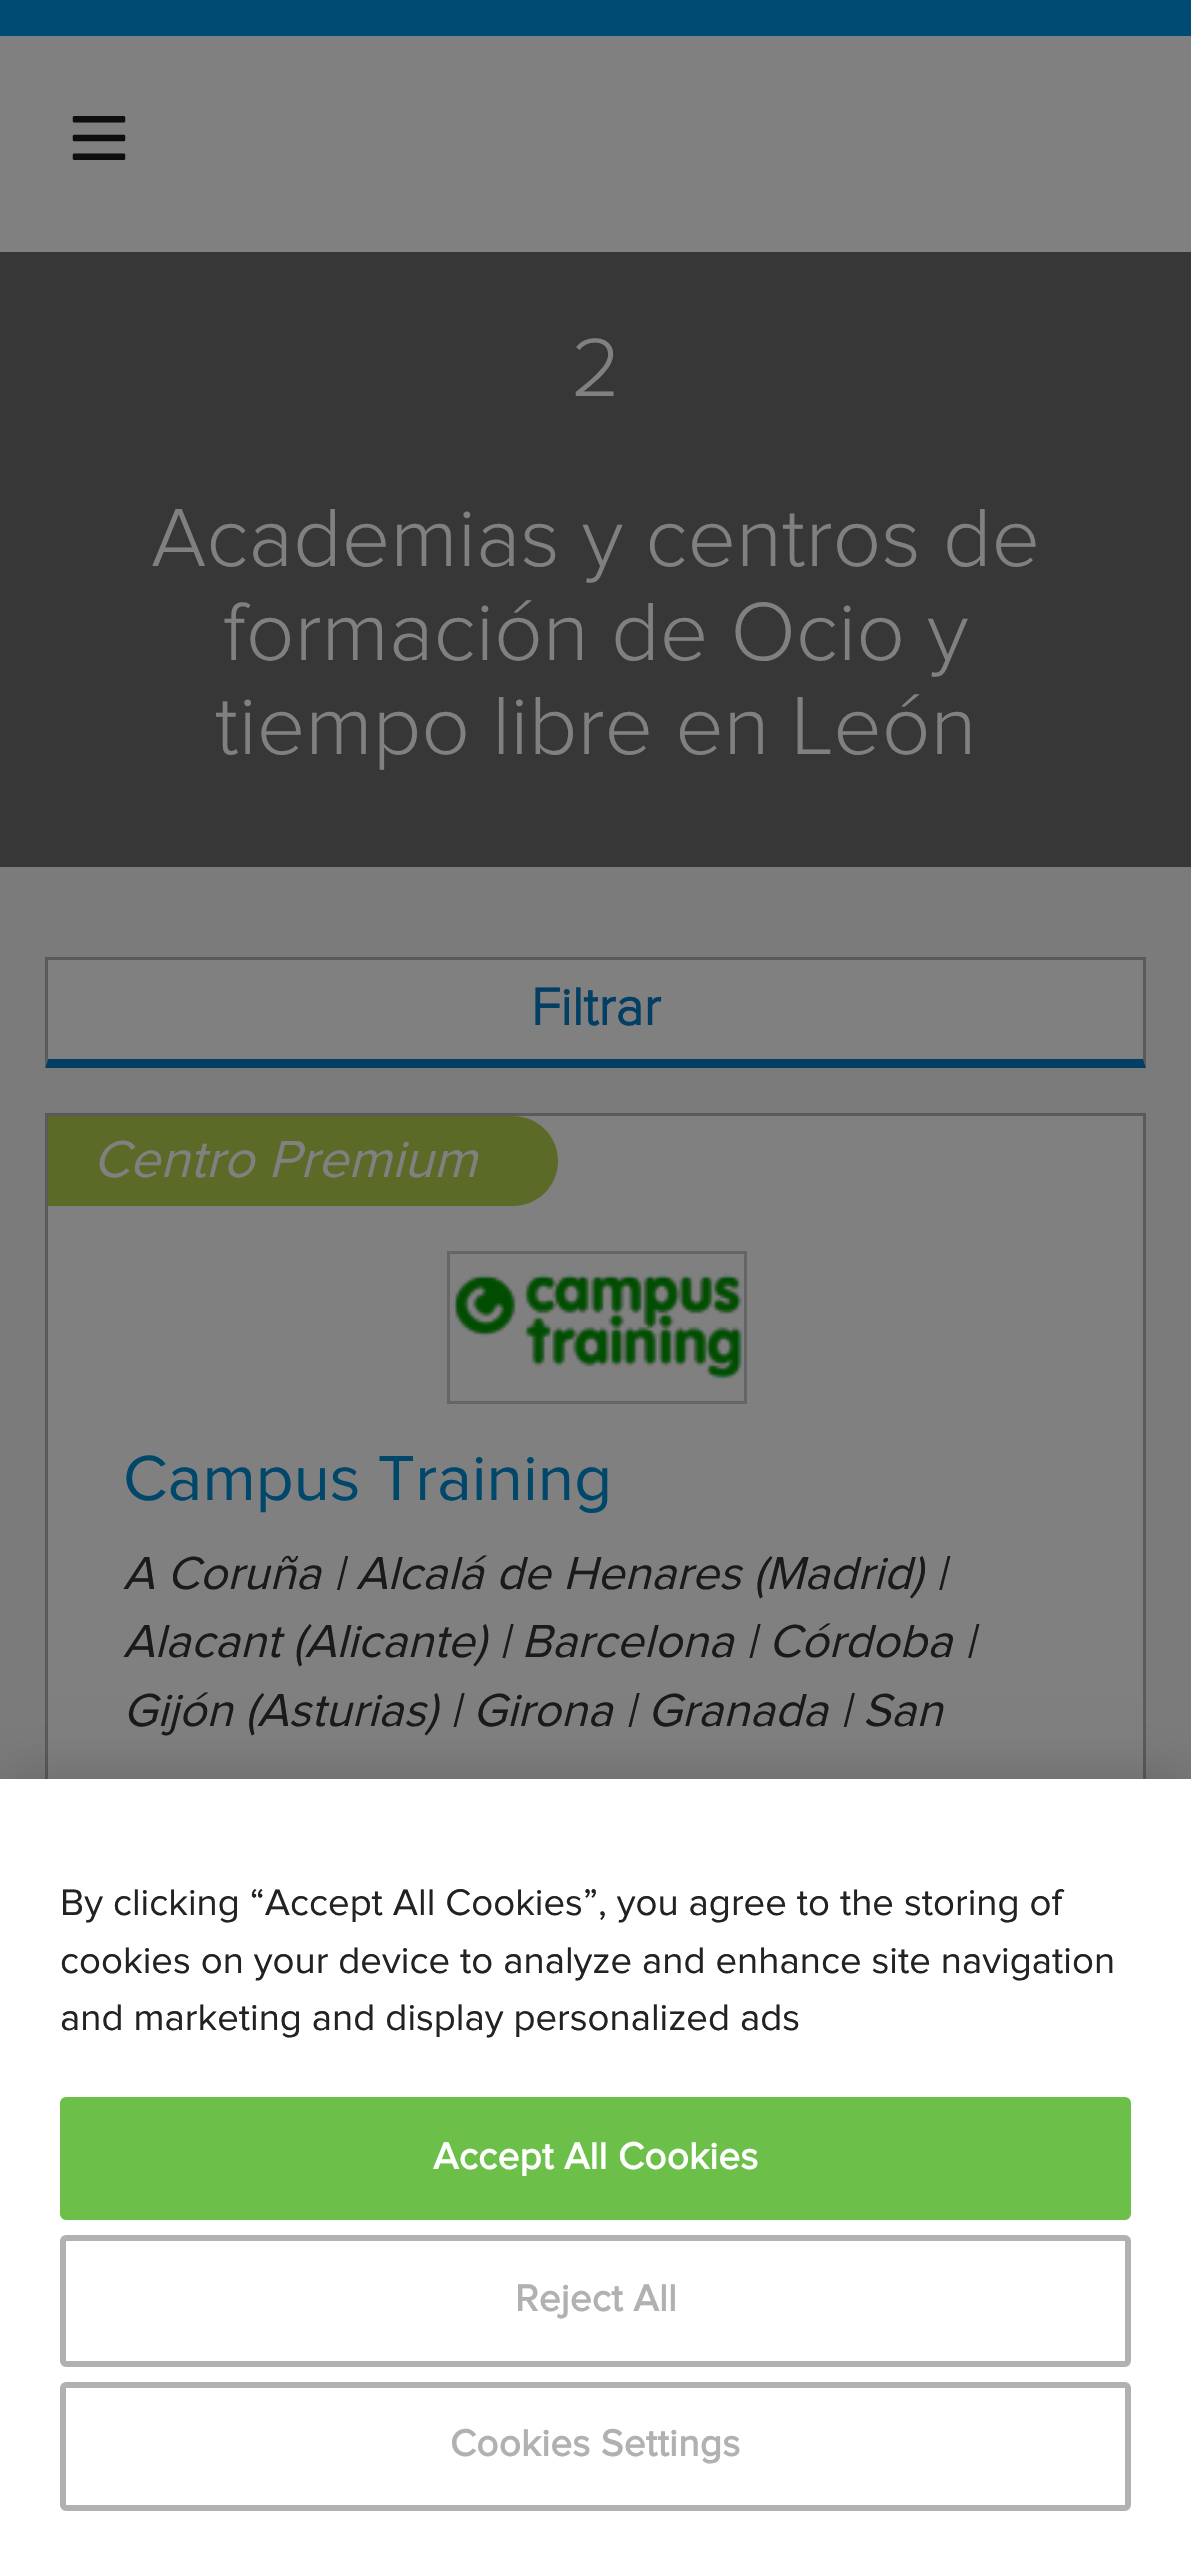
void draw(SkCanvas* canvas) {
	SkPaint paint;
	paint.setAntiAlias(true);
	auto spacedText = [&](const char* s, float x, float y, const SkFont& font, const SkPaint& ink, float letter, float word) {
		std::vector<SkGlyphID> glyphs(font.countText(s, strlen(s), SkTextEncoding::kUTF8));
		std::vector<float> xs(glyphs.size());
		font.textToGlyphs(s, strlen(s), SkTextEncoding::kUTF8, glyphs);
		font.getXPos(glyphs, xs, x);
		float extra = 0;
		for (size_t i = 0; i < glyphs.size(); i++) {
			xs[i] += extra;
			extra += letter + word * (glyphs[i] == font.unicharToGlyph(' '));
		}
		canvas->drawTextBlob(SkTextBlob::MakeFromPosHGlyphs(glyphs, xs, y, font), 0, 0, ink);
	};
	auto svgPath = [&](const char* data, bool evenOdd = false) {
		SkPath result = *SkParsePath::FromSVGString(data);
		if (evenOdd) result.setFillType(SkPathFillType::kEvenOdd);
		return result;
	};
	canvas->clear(0xff7b7b7b);
	paint.setColor(0xff808080);
	canvas->drawRect(SkRect::MakeXYWH(0, 36, 1191, 216), paint);
	paint.setColor(0xff004b73);
	canvas->drawRect(SkRect::MakeXYWH(0, 0, 1191, 36), paint);
	canvas->drawImageRect(SkImages::DeferredFromEncodedData(SkData::MakeFromFileName("img1.png")), SkRect::MakeXYWH(72, 116, 54, 44), SkSamplingOptions());
	paint.setColor(0xff373737);
	canvas->drawRect(SkRect::MakeXYWH(0, 252, 1191, 615), paint);
	SkFont f1(fontMgr->matchFamilyStyle("Proxima Nova", SkFontStyle(300, SkFontStyle::kNormal_Width, SkFontStyle::kUpright_Slant)), 85.5);
	f1.setSubpixel(true);
	paint.setColor(0xff808080);
	canvas->drawString("2", 571, 396, f1, paint);
	canvas->drawString("Academias y centros de", 151, 566, f1, paint);
	canvas->drawString("formación de Ocio y", 223, 660, f1, paint);
	canvas->drawString("tiempo libre en León", 215, 754, f1, paint);
	canvas->drawRect(SkRect::MakeXYWH(48, 960, 1095, 99), paint);
	paint.setColor(0xff5a5a5a);
	canvas->drawRect(SkRect::MakeXYWH(45, 957, 1101, 3), paint);
	canvas->drawPath(svgPath("M1146 957V1068L1143 1059V960Z"), paint);
	paint.setColor(0xff033e63);
	canvas->drawPath(svgPath("M1146 1068H45L48 1059H1143Z"), paint);
	paint.setColor(0xff5a5a5a);
	canvas->drawPath(svgPath("M45 1068V957L48 960V1059Z"), paint);
	SkFont f2(fontMgr->matchFamilyStyle("Proxima Nova", SkFontStyle::Bold()), 54);
	f2.setSubpixel(true);
	paint.setColor(0xff033e63);
	canvas->drawString("Filtrar", 531, 1025, f2, paint);
	paint.setColor(0xff808080);
	canvas->drawRect(SkRect::MakeXYWH(48, 1116, 1095, 663), paint);
	paint.setStroke(true);
	paint.setStrokeWidth(3);
	paint.setColor(0xff5a5a5a);
	canvas->drawRect(SkRect::MakeXYWH(46.5, 1114.5, 1098, 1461), paint);
	paint.setStroke(false);
	paint.setColor(0xff5c6a28);
	canvas->drawPath(svgPath("M48 1116H513C538 1116 558 1136 558 1161C558 1186 538 1206 513 1206H48Z"), paint);
	SkFont f3(fontMgr->matchFamilyStyle("Proxima Nova", SkFontStyle::Italic()), 54);
	f3.setSubpixel(true);
	paint.setColor(0xff808080);
	canvas->drawString("Centro Premium", 93, 1177, f3, paint);
	paint.setStroke(true);
	paint.setColor(0xff656565);
	canvas->drawRect(SkRect::MakeXYWH(448.5, 1252.5, 297, 150), paint);
	canvas->drawImageRect(SkImages::DeferredFromEncodedData(SkData::MakeFromFileName("img2.png")), SkRect::MakeXYWH(452, 1273, 291, 106), SkSamplingOptions());
	SkFont f4(fontMgr->matchFamilyStyle("Proxima Nova", SkFontStyle::Normal()), 66);
	f4.setSubpixel(true);
	paint.setStroke(false);
	paint.setColor(0xff00476a);
	canvas->drawString("Campus Training", 123, 1500, f4, paint);
	SkFont f5(fontMgr->matchFamilyStyle("Proxima Nova", SkFontStyle::Italic()), 48);
	f5.setSubpixel(true);
	paint.setColor(0xff1a1a1a);
	canvas->drawString("A Coruña | Alcalá de Henares (Madrid) |", 123, 1589, f5, paint);
	canvas->drawString("Alacant (Alicante) | Barcelona | Córdoba |", 123, 1657, f5, paint);
	canvas->drawString("Gijón (Asturias) | Girona | Granada | San", 123, 1726, f5, paint);
	paint.setColor(0x33000000);
	paint.setMaskFilter(SkMaskFilter::MakeBlur(kNormal_SkBlurStyle, 27));
	canvas->drawRect(SkRect::MakeXYWH(0, 1779, 1191, 795), paint);
	paint.setMaskFilter(nullptr);
	paint.setColor(0xffffffff);
	canvas->drawRect(SkRect::MakeXYWH(0, 1779, 1191, 795), paint);
	SkFont f6(fontMgr->matchFamilyStyle("Proxima Nova", SkFontStyle::Normal()), 38.4);
	f6.setSubpixel(true);
	paint.setColor(0xff222222);
	canvas->drawString("By clicking “Accept All Cookies”, you agree to the storing of", 60, 1915, f6, paint);
	canvas->drawString("cookies on your device to analyze and enhance site navigation", 60, 1973, f6, paint);
	canvas->drawString("and marketing and display personalized ads", 60, 2030, f6, paint);
	paint.setColor(0xff6cc04a);
	canvas->drawRoundRect(SkRect::MakeXYWH(61.5, 2098.5, 1068, 120), 4.5, 4.5, paint);
	paint.setStroke(true);
	canvas->drawRoundRect(SkRect::MakeXYWH(61.5, 2098.5, 1068, 120), 4.5, 4.5, paint);
	SkFont f7(fontMgr->matchFamilyStyle("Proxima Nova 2", SkFontStyle::Bold()), 38.4);
	f7.setSubpixel(true);
	paint.setStroke(false);
	paint.setColor(0xffffffff);
	spacedText("Accept All Cookies", 433, 2169, f7, paint, 0.4, 0);
	paint.setStroke(true);
	paint.setStrokeWidth(6);
	paint.setColor(0xffb1b1b1);
	canvas->drawRoundRect(SkRect::MakeXYWH(63, 2238, 1065, 126), 3, 3, paint);
	paint.setStroke(false);
	spacedText("Reject All", 515, 2311, f7, paint, 0.4, 0);
	paint.setStroke(true);
	canvas->drawRoundRect(SkRect::MakeXYWH(63, 2385, 1065, 123), 3, 3, paint);
	paint.setStroke(false);
	spacedText("Cookies Settings", 450, 2456, f7, paint, 0.4, 0);
}
